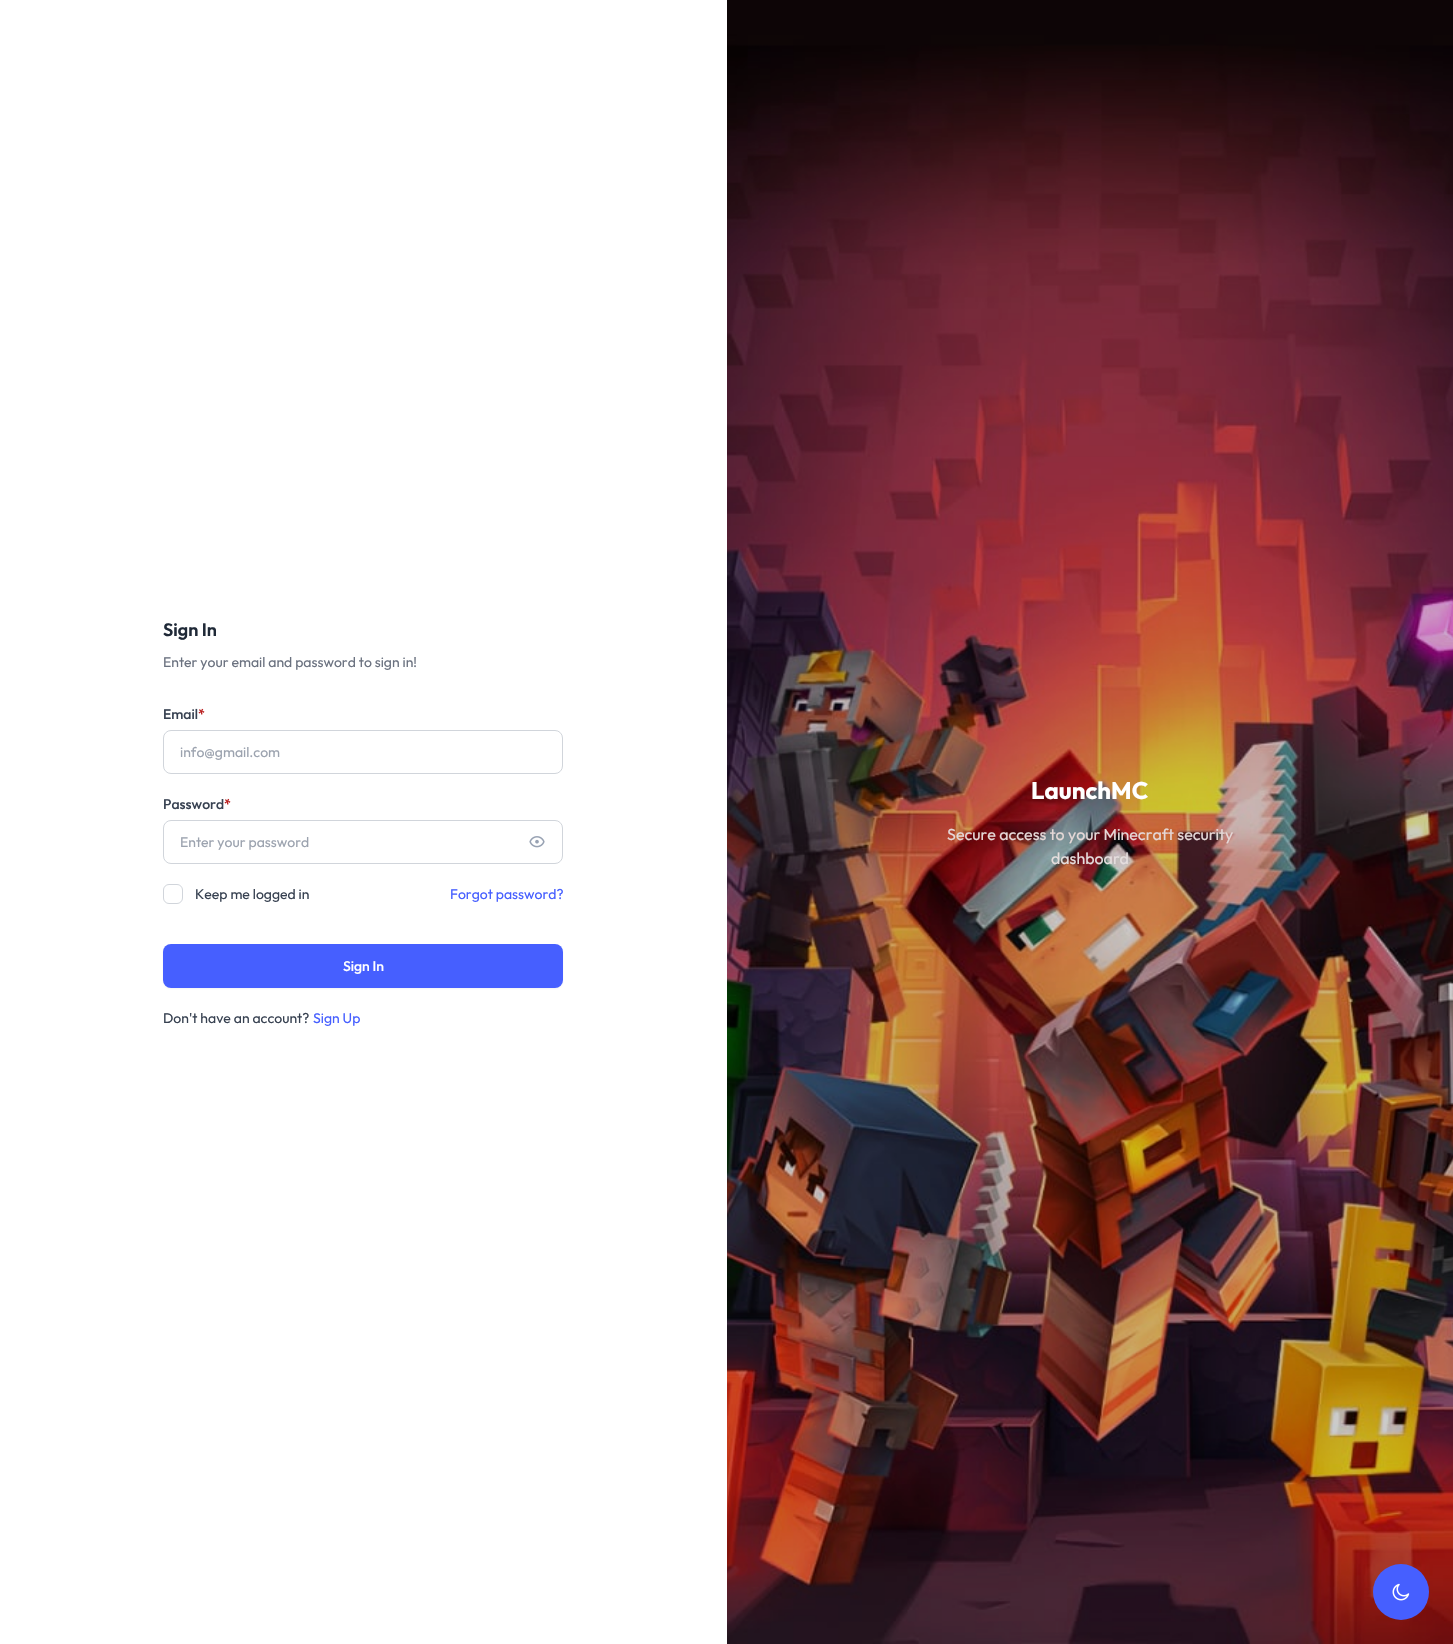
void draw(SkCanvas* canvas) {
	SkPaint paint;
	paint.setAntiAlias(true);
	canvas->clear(0xffffffff);
	SkFont f1(fontMgr->matchFamilyStyle("Outfit", SkFontStyle(600, SkFontStyle::kNormal_Width, SkFontStyle::kUpright_Slant)), 18);
	f1.setSubpixel(true);
	paint.setColor(0xff1f2937);
	canvas->drawString("Sign In", 163, 636, f1, paint);
	SkFont f2(fontMgr->matchFamilyStyle("Outfit", SkFontStyle::Normal()), 14);
	f2.setSubpixel(true);
	paint.setColor(0xff6b7280);
	canvas->drawString("Enter your email and password to sign in!", 163, 667, f2, paint);
	SkFont f3(fontMgr->matchFamilyStyle("Outfit", SkFontStyle(500, SkFontStyle::kNormal_Width, SkFontStyle::kUpright_Slant)), 14);
	f3.setSubpixel(true);
	paint.setColor(0xff374151);
	canvas->drawString("Email", 163, 719, f3, paint);
	paint.setColor(0xffb91c1c);
	canvas->drawString("*", 198, 719, f3, paint);
	paint.setStroke(true);
	paint.setStrokeWidth(1);
	paint.setColor(0xffd1d5db);
	canvas->drawRoundRect(SkRect::MakeXYWH(163.5, 730.5, 399, 43), 7.5, 7.5, paint);
	paint.setStroke(false);
	paint.setColor(0xff9ca3af);
	canvas->drawString("info@gmail.com", 180, 757, f2, paint);
	paint.setColor(0xff374151);
	canvas->drawString("Password", 163, 809, f3, paint);
	paint.setColor(0xffb91c1c);
	canvas->drawString("*", 224, 809, f3, paint);
	paint.setStroke(true);
	paint.setColor(0xffd1d5db);
	canvas->drawRoundRect(SkRect::MakeXYWH(163.5, 820.5, 399, 43), 7.5, 7.5, paint);
	paint.setStroke(false);
	paint.setColor(0xff9ca3af);
	canvas->drawString("Enter your password", 180, 847, f2, paint);
	canvas->drawImageRect(SkImages::DeferredFromEncodedData(SkData::MakeFromFileName("img1.png")), SkRect::MakeXYWH(529, 836, 16, 12), SkSamplingOptions());
	paint.setStroke(true);
	paint.setColor(0xffd1d5db);
	canvas->drawRoundRect(SkRect::MakeXYWH(163.5, 884.5, 19, 19), 5.5, 5.5, paint);
	paint.setStroke(false);
	paint.setColor(0xff374151);
	canvas->drawString("Keep me logged in", 195, 899, f2, paint);
	paint.setColor(0xff465fff);
	canvas->drawString("Forgot password?", 450, 899, f2, paint);
	paint.setColor(0x0d101828);
	paint.setMaskFilter(SkMaskFilter::MakeBlur(kNormal_SkBlurStyle, 1));
	canvas->drawRoundRect(SkRect::MakeXYWH(163, 945, 400, 44), 8, 8, paint);
	paint.setMaskFilter(nullptr);
	paint.setColor(0xff465fff);
	canvas->drawRoundRect(SkRect::MakeXYWH(163, 944, 400, 44), 8, 8, paint);
	paint.setColor(0xffffffff);
	canvas->drawString("Sign In", 343, 971, f3, paint);
	paint.setColor(0xff374151);
	canvas->drawString("Don't have an account?", 163, 1023, f2, paint);
	paint.setColor(0xff465fff);
	canvas->drawString("Sign Up", 313, 1023, f2, paint);
	canvas->drawImageRect(SkImages::DeferredFromEncodedData(SkData::MakeFromFileName("img2.png")), SkRect::MakeXYWH(727, 0, 726, 1644), SkSamplingOptions());
	SkFont f4(fontMgr->matchFamilyStyle("Outfit", SkFontStyle::Bold()), 24);
	f4.setSubpixel(true);
	paint.setColor(0xffffffff);
	canvas->drawString("LaunchMC", 1031, 799, f4, paint);
	SkFont f5(fontMgr->matchFamilyStyle("Outfit", SkFontStyle::Normal()), 16);
	f5.setSubpixel(true);
	paint.setColor(0xffe5d8d7);
	canvas->drawString("Secure access to your Minecraft security", 947, 840, f5, paint);
	paint.setColor(0xffe5dede);
	canvas->drawString("dashboard", 1051, 864, f5, paint);
	paint.setColor(0xff465fff);
	canvas->drawCircle(1401, 1592, 28, paint);
	canvas->drawImageRect(SkImages::DeferredFromEncodedData(SkData::MakeFromFileName("img3.png")), SkRect::MakeXYWH(1392, 1583, 18, 18), SkSamplingOptions());
}
